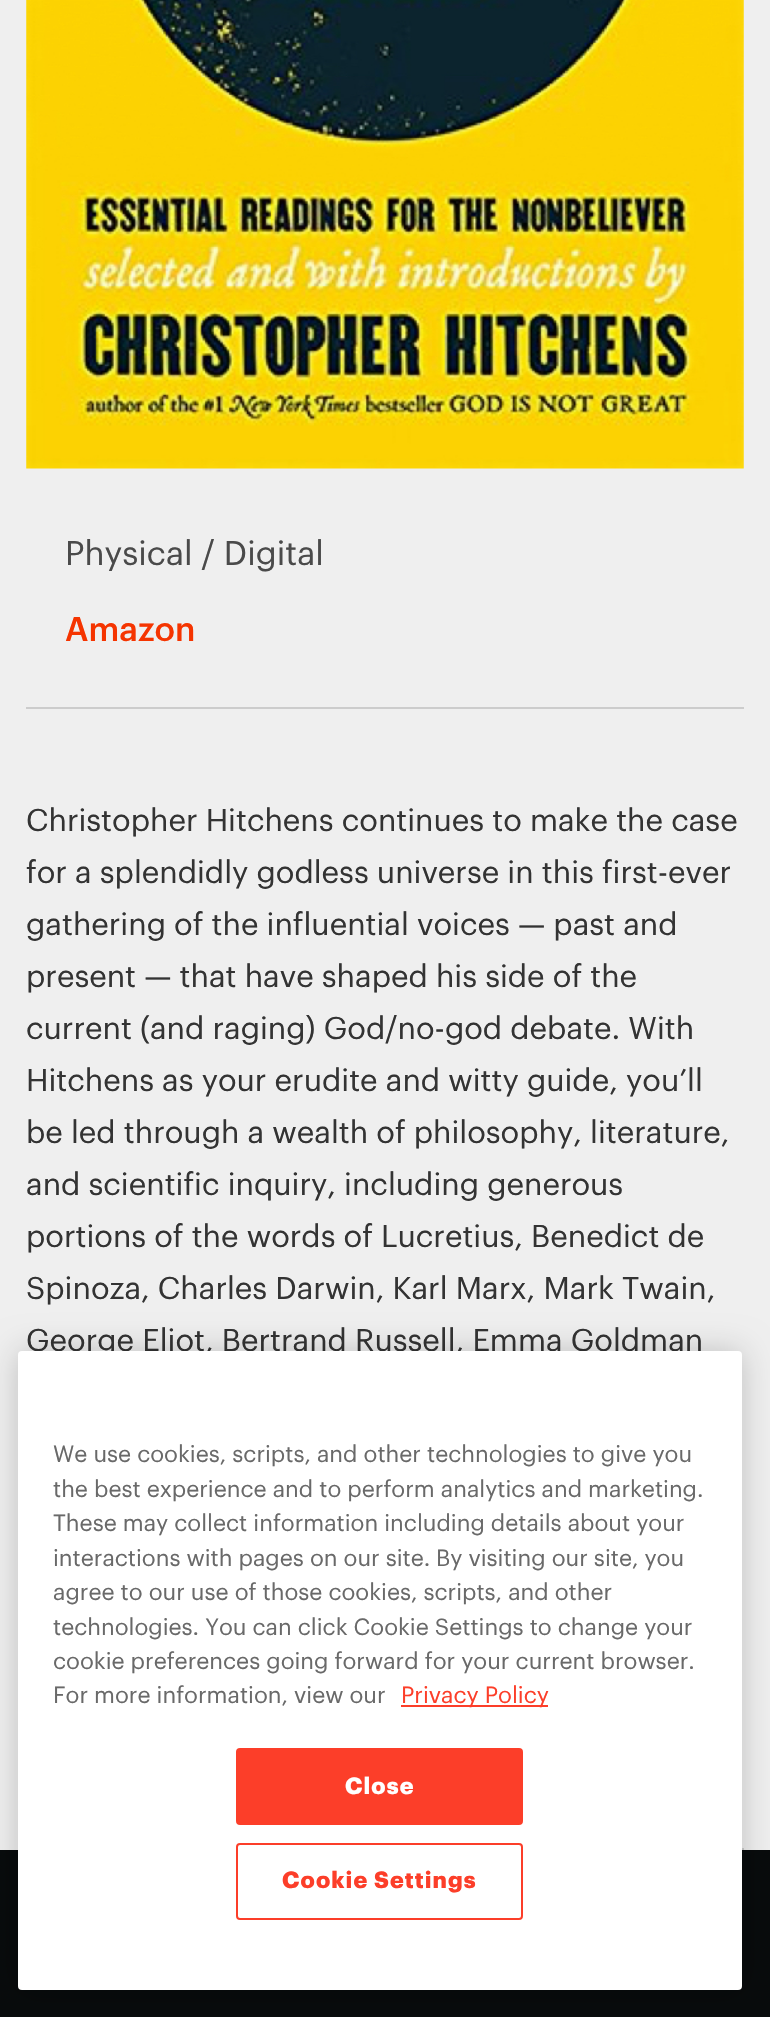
void draw(SkCanvas* canvas) {
	SkPaint paint;
	paint.setAntiAlias(true);
	auto spacedText = [&](const char* s, float x, float y, const SkFont& font, const SkPaint& ink, float letter, float word) {
		std::vector<SkGlyphID> glyphs(font.countText(s, strlen(s), SkTextEncoding::kUTF8));
		std::vector<float> xs(glyphs.size());
		font.textToGlyphs(s, strlen(s), SkTextEncoding::kUTF8, glyphs);
		font.getXPos(glyphs, xs, x);
		float extra = 0;
		for (size_t i = 0; i < glyphs.size(); i++) {
			xs[i] += extra;
			extra += letter + word * (glyphs[i] == font.unicharToGlyph(' '));
		}
		canvas->drawTextBlob(SkTextBlob::MakeFromPosHGlyphs(glyphs, xs, y, font), 0, 0, ink);
	};
	canvas->clear(0xffefefef);
	paint.setColor(0xffcccccc);
	canvas->drawRect(SkRect::MakeXYWH(742, 1848, 2, 2), paint);
	canvas->drawImageRect(SkImages::DeferredFromEncodedData(SkData::MakeFromFileName("img1.png")), SkRect::MakeXYWH(26, 0, 718, 469), SkSamplingOptions());
	canvas->drawRect(SkRect::MakeXYWH(26, 707, 718, 2), paint);
	SkFont f1(fontMgr->matchFamilyStyle("Graphik", SkFontStyle::Normal()), 33.5);
	f1.setSubpixel(true);
	paint.setColor(0xff4a4a4a);
	canvas->drawString("Physical / Digital", 65, 565, f1, paint);
	SkFont f2(fontMgr->matchFamilyStyle("Graphik", SkFontStyle(500, SkFontStyle::kNormal_Width, SkFontStyle::kUpright_Slant)), 33.5);
	f2.setSubpixel(true);
	paint.setColor(0xfff53400);
	canvas->drawString("Amazon", 65, 641, f2, paint);
	SkFont f3(fontMgr->matchFamilyStyle("Graphik", SkFontStyle::Normal()), 30.8);
	f3.setSubpixel(true);
	paint.setColor(0xff333333);
	canvas->drawString("Christopher Hitchens continues to make the case", 26, 831, f3, paint);
	canvas->drawString("for a splendidly godless universe in this first-ever", 26, 883, f3, paint);
	canvas->drawString("gathering of the influential voices — past and", 26, 935, f3, paint);
	canvas->drawString("present — that have shaped his side of the", 26, 987, f3, paint);
	canvas->drawString("current (and raging) God/no-god debate. With", 26, 1039, f3, paint);
	canvas->drawString("Hitchens as your erudite and witty guide, you’ll", 26, 1091, f3, paint);
	canvas->drawString("be led through a wealth of philosophy, literature,", 26, 1143, f3, paint);
	canvas->drawString("and scientific inquiry, including generous", 26, 1195, f3, paint);
	canvas->drawString("portions of the words of Lucretius, Benedict de", 26, 1247, f3, paint);
	canvas->drawString("Spinoza, Charles Darwin, Karl Marx, Mark Twain,", 26, 1299, f3, paint);
	canvas->drawString("George Eliot, Bertrand Russell, Emma Goldman", 26, 1351, f3, paint);
	paint.setColor(0xff080b0c);
	canvas->drawRect(SkRect::MakeXYWH(0, 1850, 770, 167), paint);
	paint.setColor(0x33000000);
	paint.setMaskFilter(SkMaskFilter::MakeBlur(kNormal_SkBlurStyle, 16));
	canvas->drawRoundRect(SkRect::MakeXYWH(18, 1351, 724, 639), 4, 4, paint);
	paint.setMaskFilter(nullptr);
	paint.setColor(0xffffffff);
	canvas->drawRoundRect(SkRect::MakeXYWH(18, 1351, 724, 639), 4, 4, paint);
	SkFont f4(fontMgr->matchFamilyStyle("Graphik", SkFontStyle::Normal()), 22.95);
	f4.setSubpixel(true);
	paint.setColor(0xff696969);
	canvas->drawString("We use cookies, scripts, and other technologies to give you", 53, 1462, f4, paint);
	canvas->drawString("the best experience and to perform analytics and marketing.", 53, 1497, f4, paint);
	canvas->drawString("These may collect information including details about your", 53, 1531, f4, paint);
	canvas->drawString("interactions with pages on our site.", 53, 1566, f4, paint);
	canvas->drawString("By visiting our site, you", 436, 1566, f4, paint);
	canvas->drawString("agree to our use of those cookies, scripts, and other", 53, 1600, f4, paint);
	canvas->drawString("technologies. You can click Cookie Settings to change your", 53, 1635, f4, paint);
	canvas->drawString("cookie preferences going forward for your current browser.", 53, 1669, f4, paint);
	canvas->drawString("For more information, view our", 53, 1703, f4, paint);
	paint.setColor(0xfffc3e29);
	canvas->drawRect(SkRect::MakeXYWH(401, 1705, 147, 2), paint);
	canvas->drawString("Privacy Policy", 401, 1703, f4, paint);
	canvas->drawRoundRect(SkRect::MakeXYWH(237, 1749, 285, 75), 3, 3, paint);
	paint.setStroke(true);
	paint.setStrokeWidth(2);
	canvas->drawRoundRect(SkRect::MakeXYWH(237, 1749, 285, 75), 3, 3, paint);
	SkFont f5(fontMgr->matchFamilyStyle("Graphik", SkFontStyle::Bold()), 22.95);
	f5.setSubpixel(true);
	paint.setStroke(false);
	paint.setColor(0xffffffff);
	spacedText("Close", 345, 1794, f5, paint, 1.1, 0);
	paint.setStroke(true);
	paint.setColor(0xfffc3e29);
	canvas->drawRoundRect(SkRect::MakeXYWH(237, 1844, 285, 75), 3, 3, paint);
	paint.setStroke(false);
	spacedText("Cookie Settings", 282, 1888, f5, paint, 1.1, 0);
}
